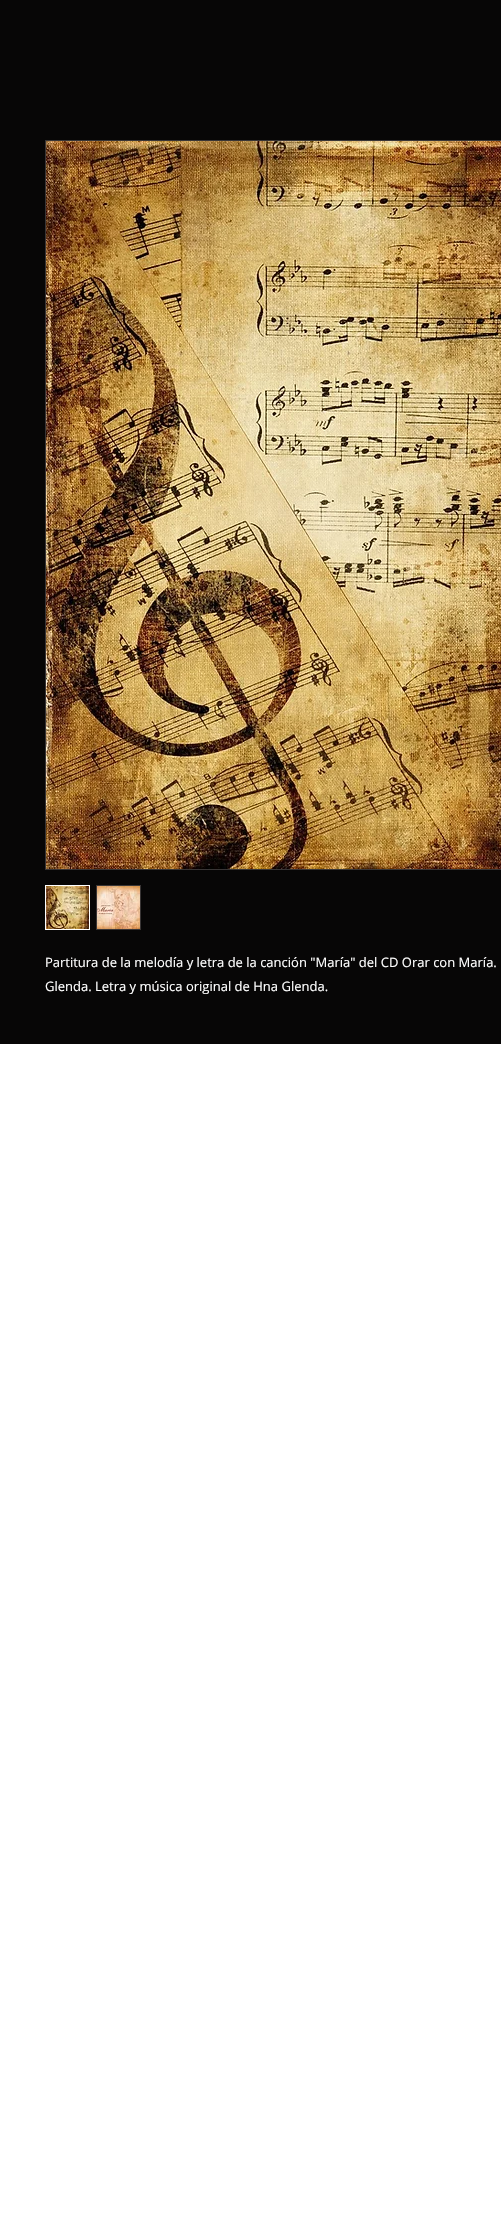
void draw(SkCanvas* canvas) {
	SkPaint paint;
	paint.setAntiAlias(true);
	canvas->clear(0xffffffff);
	paint.setColor(0xff070606);
	canvas->drawRect(SkRect::MakeXYWH(0, 0, 501, 1044), paint);
	paint.setStroke(true);
	paint.setStrokeWidth(1);
	paint.setColor(0xff393535);
	canvas->drawRect(SkRect::MakeXYWH(45.5, 140.5, 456, 729), paint);
	canvas->drawImageRect(SkImages::DeferredFromEncodedData(SkData::MakeFromFileName("img1.png")), SkRect::MakeXYWH(46, 141, 455, 728), SkSamplingOptions());
	paint.setColor(0xffffffff);
	canvas->drawRect(SkRect::MakeXYWH(45.5, 885.5, 44, 44), paint);
	canvas->drawImageRect(SkImages::DeferredFromEncodedData(SkData::MakeFromFileName("img2.png")), SkRect::MakeXYWH(46, 886, 43, 43), SkSamplingOptions());
	paint.setStroke(false);
	paint.setColor(0xff393535);
	canvas->drawRect(SkRect::MakeXYWH(96, 885, 45, 45), paint);
	canvas->drawImageRect(SkImages::DeferredFromEncodedData(SkData::MakeFromFileName("img3.png")), SkRect::MakeXYWH(97, 886, 43, 43), SkSamplingOptions());
	SkFont f1(fontMgr->matchFamilyStyle("Open Sans", SkFontStyle::Normal()), 13);
	f1.setSubpixel(true);
	paint.setColor(0xffffffff);
	canvas->drawString("Partitura de la melodía y letra de la canción \"María\" del CD Orar con María.", 45, 967, f1, paint);
	canvas->drawString("Glenda. Letra y música original de Hna Glenda.", 45, 991, f1, paint);
}
